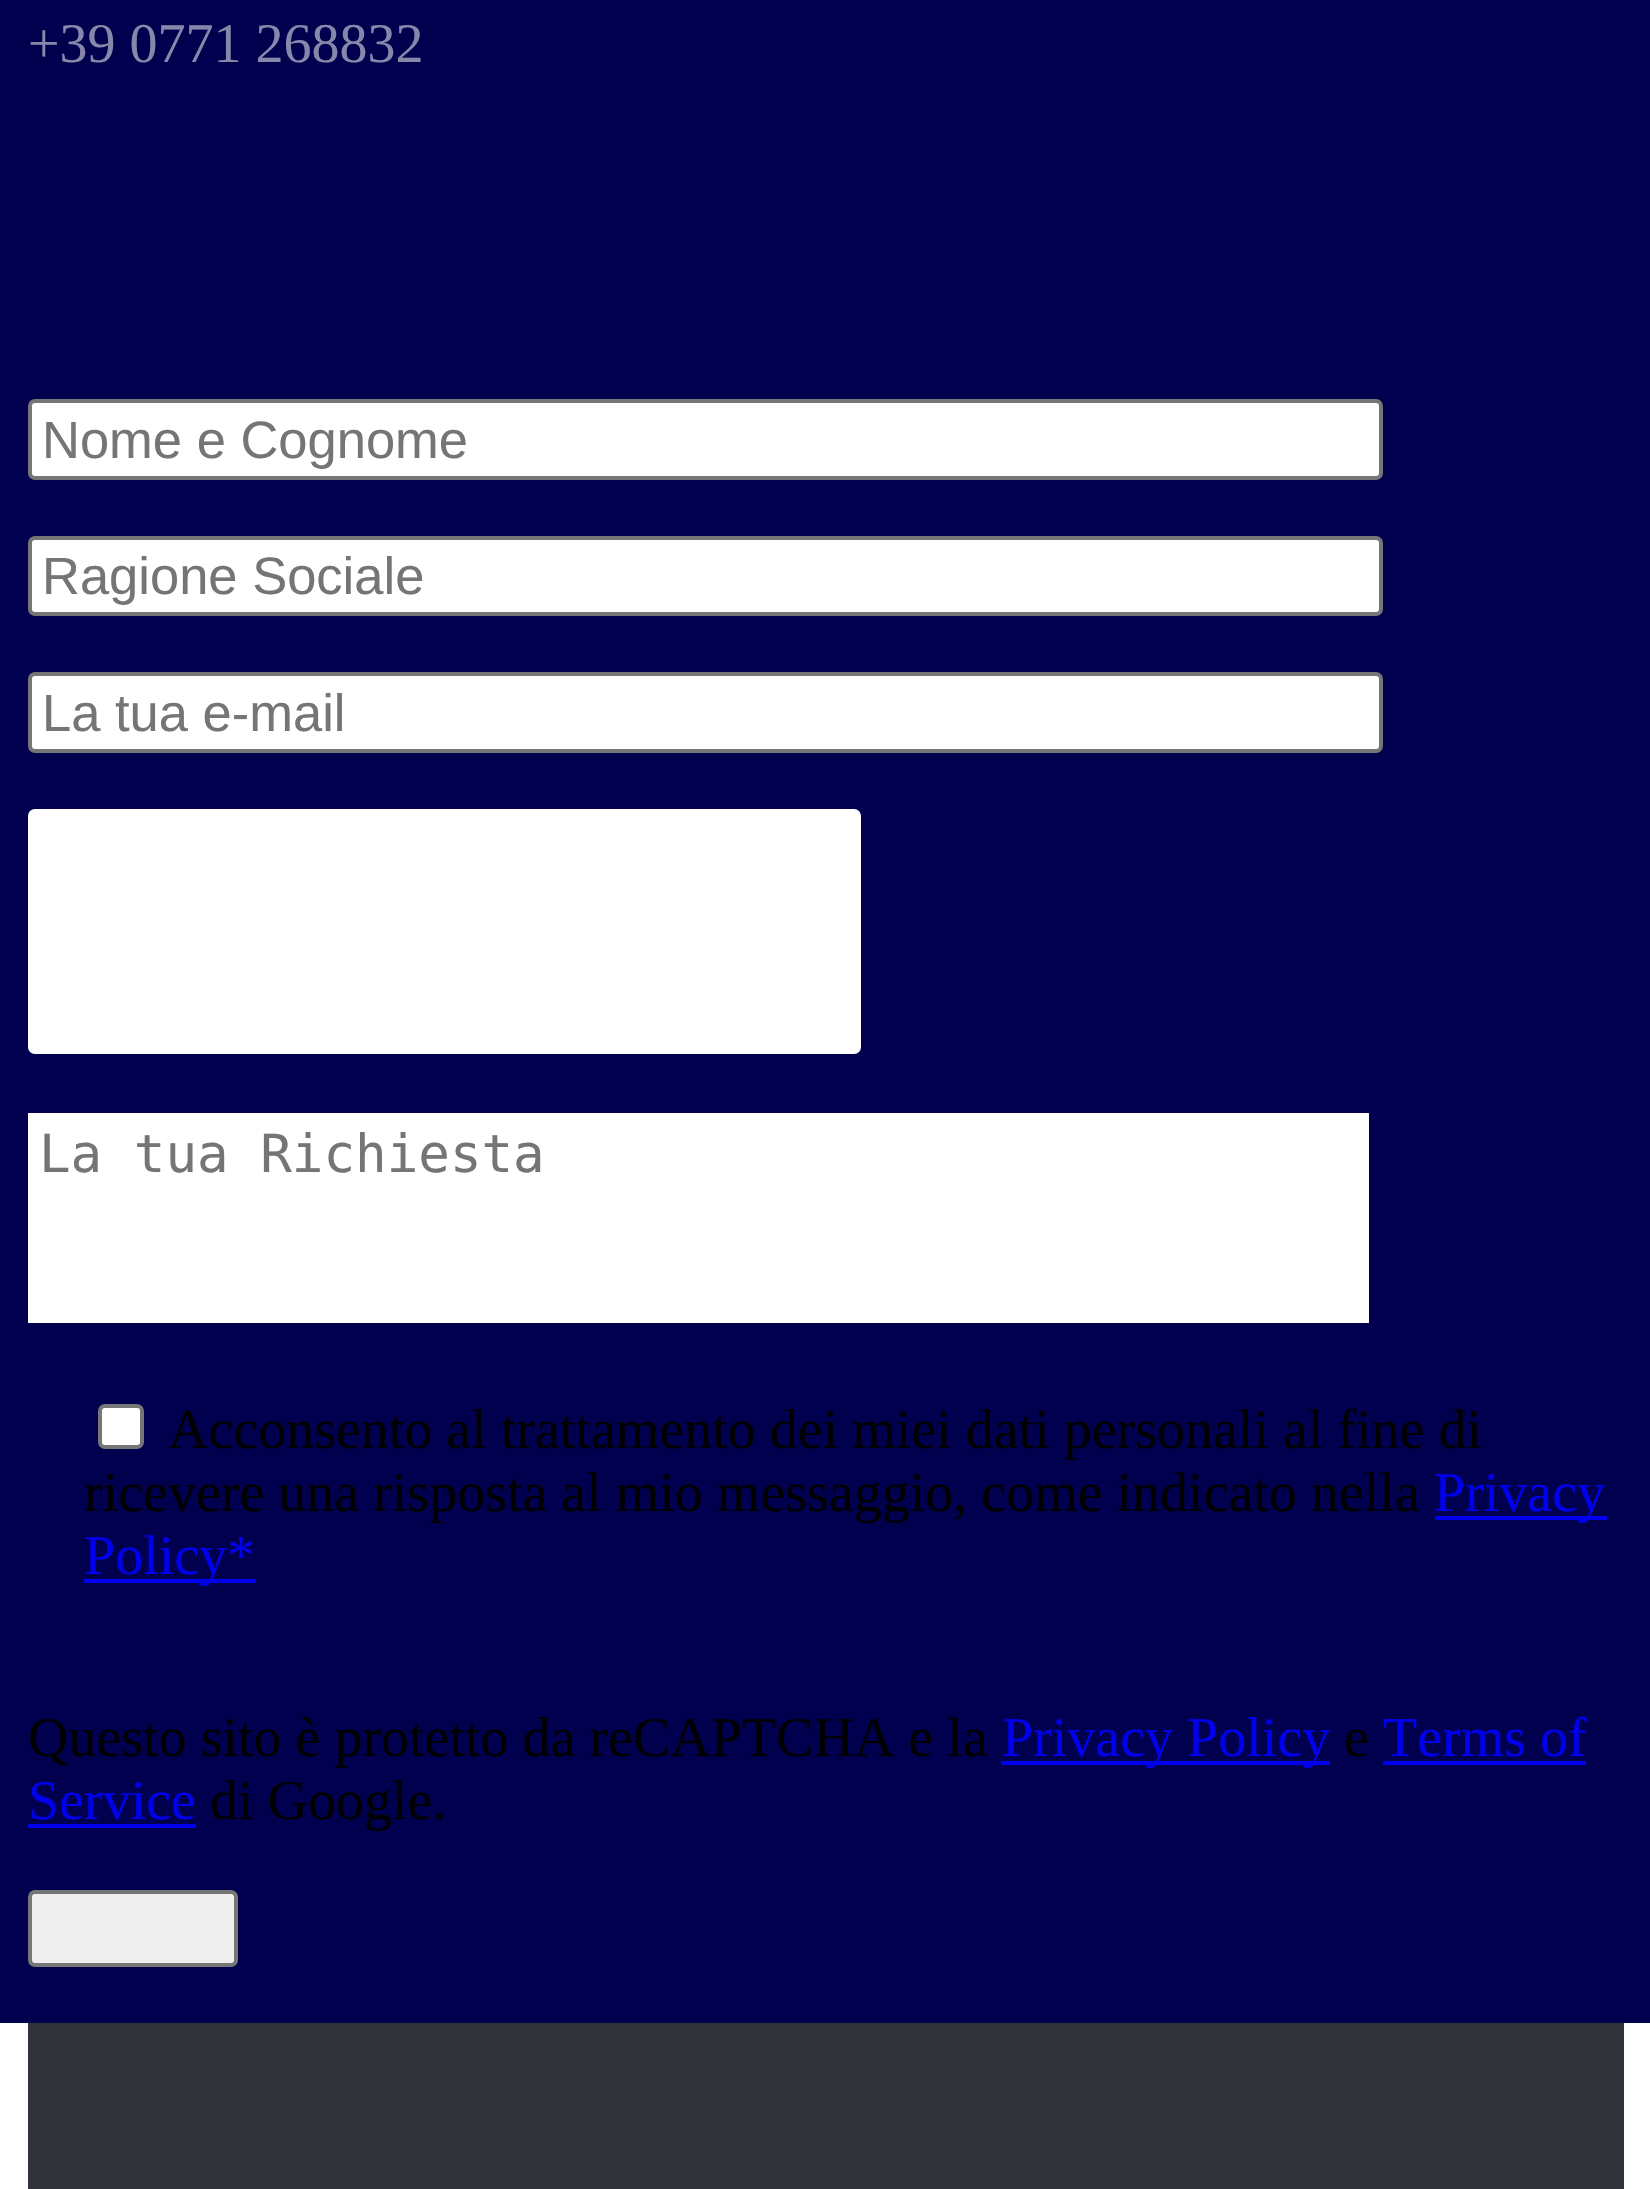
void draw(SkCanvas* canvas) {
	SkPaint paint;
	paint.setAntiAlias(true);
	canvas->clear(0xffffffff);
	paint.setColor(0xff00004f);
	canvas->drawRect(SkRect::MakeXYWH(0, 0, 1650, 2023), paint);
	SkFont f1(fontMgr->matchFamilyStyle("Liberation Serif", SkFontStyle::Normal()), 56);
	f1.setSubpixel(true);
	paint.setColor(0xff8787ac);
	canvas->drawString("+39 0771 268832", 28, 62, f1, paint);
	paint.setColor(0xffffffff);
	canvas->drawRoundRect(SkRect::MakeXYWH(30, 401, 1351, 77), 5, 5, paint);
	paint.setStroke(true);
	paint.setStrokeWidth(4);
	paint.setColor(0xff767676);
	canvas->drawRoundRect(SkRect::MakeXYWH(30, 401, 1351, 77), 5, 5, paint);
	SkFont f2(fontMgr->matchFamilyStyle("Liberation Sans", SkFontStyle::Normal()), 52.5);
	f2.setSubpixel(true);
	paint.setStroke(false);
	paint.setColor(0xff757575);
	canvas->drawString("Nome e Cognome", 42, 458, f2, paint);
	paint.setColor(0xffffffff);
	canvas->drawRoundRect(SkRect::MakeXYWH(30, 538, 1351, 76), 5, 5, paint);
	paint.setStroke(true);
	paint.setColor(0xff767676);
	canvas->drawRoundRect(SkRect::MakeXYWH(30, 538, 1351, 76), 5, 5, paint);
	paint.setStroke(false);
	paint.setColor(0xff757575);
	canvas->drawString("Ragione Sociale", 42, 594, f2, paint);
	paint.setColor(0xffffffff);
	canvas->drawRoundRect(SkRect::MakeXYWH(30, 674, 1351, 77), 5, 5, paint);
	paint.setStroke(true);
	paint.setColor(0xff767676);
	canvas->drawRoundRect(SkRect::MakeXYWH(30, 674, 1351, 77), 5, 5, paint);
	paint.setStroke(false);
	paint.setColor(0xff757575);
	canvas->drawString("La tua e-mail", 42, 731, f2, paint);
	paint.setColor(0xffffffff);
	canvas->drawRoundRect(SkRect::MakeXYWH(28, 809, 833, 245), 7, 7, paint);
	paint.setStroke(true);
	paint.setColor(0x33ffffff);
	canvas->drawRoundRect(SkRect::MakeXYWH(30, 811, 829, 241), 5, 5, paint);
	paint.setStroke(false);
	paint.setColor(0xffffffff);
	canvas->drawRect(SkRect::MakeXYWH(28, 1113, 1341, 210), paint);
	SkFont f3(fontMgr->matchFamilyStyle("DejaVu Sans Mono", SkFontStyle::Normal()), 52.5);
	f3.setSubpixel(true);
	paint.setColor(0xff757575);
	canvas->drawString("La tua Richiesta", 39, 1172, f3, paint);
	paint.setColor(0xffffffff);
	canvas->drawRoundRect(SkRect::MakeXYWH(100, 1406, 42, 41), 5, 5, paint);
	paint.setStroke(true);
	paint.setColor(0xff767676);
	canvas->drawRoundRect(SkRect::MakeXYWH(100, 1406, 42, 41), 5, 5, paint);
	paint.setStroke(false);
	paint.setColor(0xff000000);
	canvas->drawString("Acconsento al trattamento dei miei dati personali al fine di", 168, 1448, f1, paint);
	canvas->drawString("ricevere una risposta al mio messaggio, come indicato nella", 84, 1511, f1, paint);
	paint.setColor(0xff0000ee);
	canvas->drawRect(SkRect::MakeXYWH(1435, 1516, 172, 4), paint);
	canvas->drawString("Privacy", 1434, 1511, f1, paint);
	canvas->drawRect(SkRect::MakeXYWH(84, 1579, 172, 4), paint);
	canvas->drawString("Policy*", 84, 1574, f1, paint);
	paint.setColor(0xff000000);
	canvas->drawString("Questo sito è protetto da reCAPTCHA e la", 28, 1756, f1, paint);
	paint.setColor(0xff0000ee);
	canvas->drawRect(SkRect::MakeXYWH(1001, 1761, 329, 4), paint);
	canvas->drawString("Privacy Policy", 1002, 1756, f1, paint);
	paint.setColor(0xff000000);
	canvas->drawString("e", 1344, 1756, f1, paint);
	paint.setColor(0xff0000ee);
	canvas->drawString("Terms of", 1383, 1756, f1, paint);
	canvas->drawRect(SkRect::MakeXYWH(1383, 1761, 203, 4), paint);
	canvas->drawString("Service", 28, 1819, f1, paint);
	canvas->drawRect(SkRect::MakeXYWH(28, 1824, 168, 4), paint);
	paint.setColor(0xff000000);
	canvas->drawString("di Google.", 210, 1819, f1, paint);
	paint.setColor(0xffefefef);
	canvas->drawRoundRect(SkRect::MakeXYWH(30, 1892, 206, 73), 5, 5, paint);
	paint.setStroke(true);
	paint.setColor(0xff767676);
	canvas->drawRoundRect(SkRect::MakeXYWH(30, 1892, 206, 73), 5, 5, paint);
	paint.setStroke(false);
	paint.setColor(0xff30333a);
	canvas->drawRect(SkRect::MakeXYWH(28, 2023, 1596, 166), paint);
}
